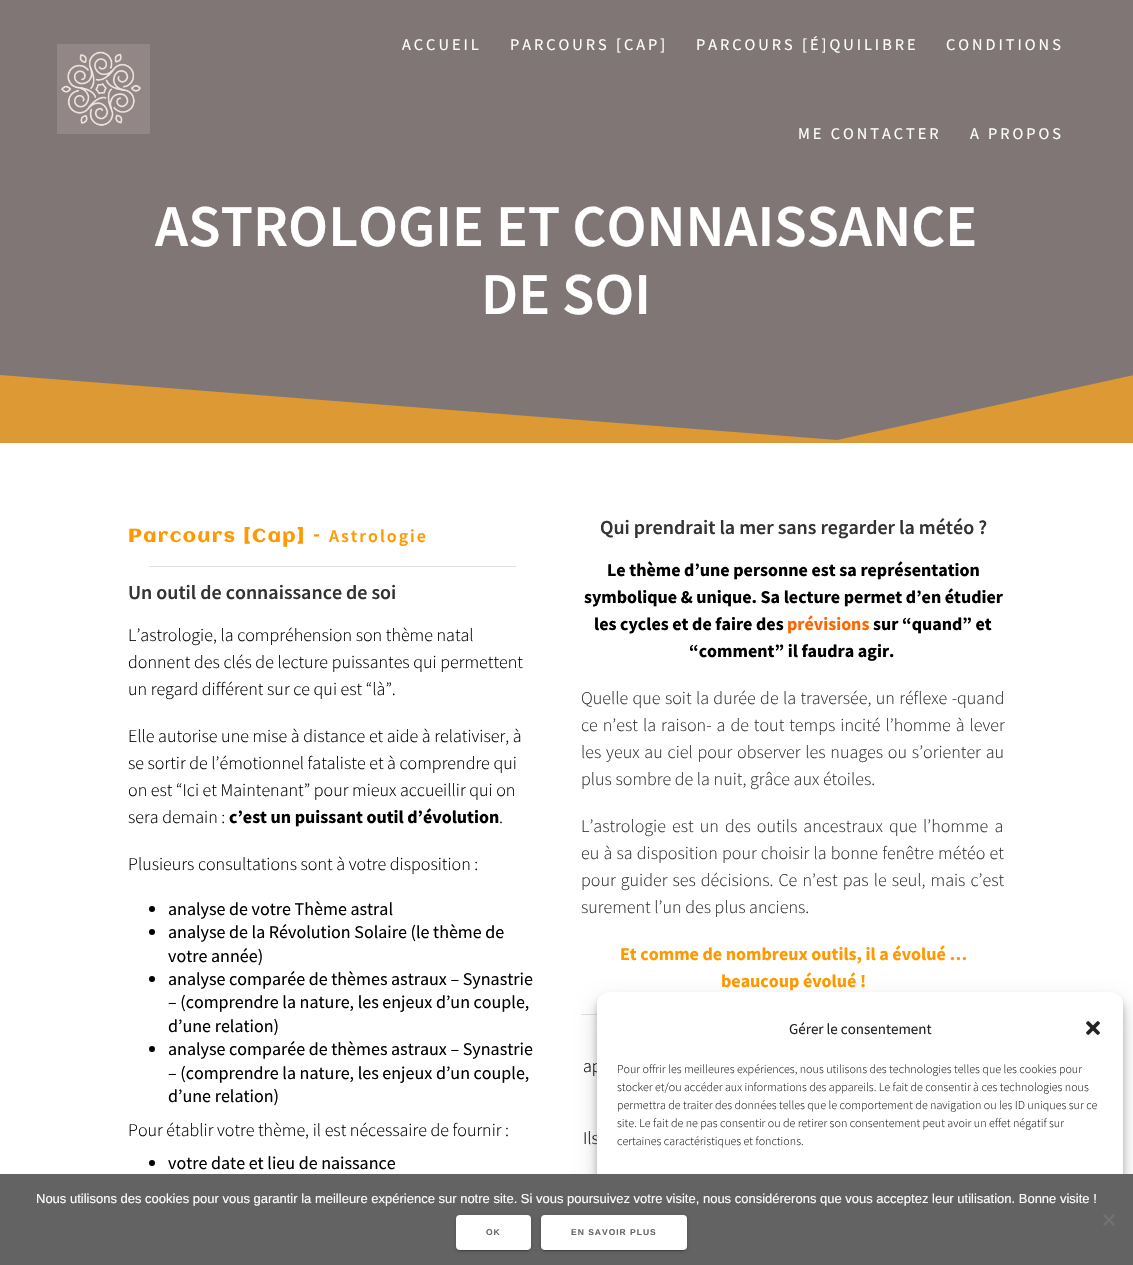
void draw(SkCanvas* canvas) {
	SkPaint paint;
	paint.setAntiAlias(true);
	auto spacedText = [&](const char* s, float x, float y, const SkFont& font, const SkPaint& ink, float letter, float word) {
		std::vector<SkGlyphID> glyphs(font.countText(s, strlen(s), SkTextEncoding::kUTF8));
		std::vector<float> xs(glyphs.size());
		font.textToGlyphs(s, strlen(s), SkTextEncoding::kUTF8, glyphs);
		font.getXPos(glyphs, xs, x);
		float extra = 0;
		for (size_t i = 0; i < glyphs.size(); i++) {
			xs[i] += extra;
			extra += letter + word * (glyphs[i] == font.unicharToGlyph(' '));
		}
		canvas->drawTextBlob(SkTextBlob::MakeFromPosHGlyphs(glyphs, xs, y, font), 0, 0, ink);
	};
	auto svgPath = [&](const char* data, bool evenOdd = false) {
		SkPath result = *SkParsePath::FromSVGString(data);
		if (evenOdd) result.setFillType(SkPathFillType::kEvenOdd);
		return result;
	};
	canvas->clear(0xffffffff);
	paint.setColor(0xff807676);
	canvas->drawRect(SkRect::MakeXYWH(0, 0, 1133, 440), paint);
	canvas->drawImageRect(SkImages::DeferredFromEncodedData(SkData::MakeFromFileName("img1.png")), SkRect::MakeXYWH(57, 44, 93, 90), SkSamplingOptions());
	SkFont f1(fontMgr->matchFamilyStyle("Source Sans Pro", SkFontStyle::Normal()), 16.25);
	f1.setSubpixel(true);
	paint.setColor(0xffffffff);
	spacedText("ACCUEIL", 402, 50, f1, paint, 3, 0);
	spacedText("PARCOURS [CAP]", 510, 50, f1, paint, 3, 0);
	spacedText("PARCOURS [É]QUILIBRE", 696, 50, f1, paint, 3, 0);
	spacedText("CONDITIONS", 946, 50, f1, paint, 3, 0);
	spacedText("ME CONTACTER", 798, 139, f1, paint, 3, 0);
	spacedText("A PROPOS", 970, 139, f1, paint, 3, 0);
	SkFont f2(fontMgr->matchFamilyStyle("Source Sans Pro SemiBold", SkFontStyle(600, SkFontStyle::kNormal_Width, SkFontStyle::kUpright_Slant)), 59.4);
	f2.setSubpixel(true);
	canvas->drawString("ASTROLOGIE ET CONNAISSANCE", 155, 246, f2, paint);
	canvas->drawString("DE SOI", 481, 314, f2, paint);
	canvas->save();
	canvas->clipRect(SkRect::MakeXYWH(0, 375, 1133, 68));
	paint.setColor(0xffdd9933);
	canvas->drawPath(svgPath("M837 440L0 375V444H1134V375Z"), paint);
	canvas->restore();
	SkFont f3(fontMgr->matchFamilyStyle("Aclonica", SkFontStyle::Bold()), 18);
	f3.setSubpixel(true);
	paint.setColor(0xffff9900);
	spacedText("Parcours [Cap] –", 128, 542, f3, paint, 2, 0);
	SkFont f4(fontMgr->matchFamilyStyle("Source Sans Pro SemiBold", SkFontStyle(600, SkFontStyle::kNormal_Width, SkFontStyle::kUpright_Slant)), 18);
	f4.setSubpixel(true);
	spacedText("Astrologie", 329, 542, f4, paint, 2, 0);
	paint.setColor(0xffe0e0e0);
	canvas->drawRect(SkRect::MakeXYWH(149, 566, 367, 1), paint);
	SkFont f5(fontMgr->matchFamilyStyle("Source Sans Pro SemiBold", SkFontStyle(600, SkFontStyle::kNormal_Width, SkFontStyle::kUpright_Slant)), 20);
	f5.setSubpixel(true);
	paint.setColor(0xff333333);
	canvas->drawString("Un outil de connaissance de soi", 128, 599, f5, paint);
	SkFont f6(fontMgr->matchFamilyStyle("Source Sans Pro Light", SkFontStyle(300, SkFontStyle::kNormal_Width, SkFontStyle::kUpright_Slant)), 18);
	f6.setSubpixel(true);
	paint.setColor(0xff000000);
	canvas->drawString("L’astrologie, la compréhension son thème natal", 128, 641, f6, paint);
	canvas->drawString("donnent des clés de lecture puissantes qui permettent", 128, 668, f6, paint);
	canvas->drawString("un regard différent sur ce qui est “là”.", 128, 695, f6, paint);
	canvas->drawString("Elle autorise une mise à distance et aide à relativiser, à", 128, 742, f6, paint);
	canvas->drawString("se sortir de l’émotionnel fataliste et à comprendre qui", 128, 769, f6, paint);
	canvas->drawString("on est “Ici et Maintenant” pour mieux accueillir qui on", 128, 796, f6, paint);
	canvas->drawString("sera demain :", 128, 823, f6, paint);
	SkFont f7(fontMgr->matchFamilyStyle("Source Sans Pro", SkFontStyle::Bold()), 18);
	f7.setSubpixel(true);
	canvas->drawString("c’est un puissant outil d’évolution", 229, 823, f7, paint);
	canvas->drawString(".", 499, 823, f6, paint);
	canvas->drawString("Plusieurs consultations sont à votre disposition :", 128, 870, f6, paint);
	canvas->drawCircle(152, 909, 3, paint);
	SkFont f8(fontMgr->matchFamilyStyle("Source Sans Pro", SkFontStyle::Normal()), 18);
	f8.setSubpixel(true);
	canvas->drawString("analyse de votre Thème astral", 168, 915, f8, paint);
	canvas->drawCircle(152, 932, 3, paint);
	canvas->drawString("analyse de la Révolution Solaire (le thème de", 168, 938, f8, paint);
	canvas->drawString("votre année)", 168, 962, f8, paint);
	canvas->drawCircle(152, 979, 3, paint);
	canvas->drawString("analyse comparée de thèmes astraux – Synastrie", 168, 985, f8, paint);
	canvas->drawString("– (comprendre la nature, les enjeux d’un couple,", 168, 1008, f8, paint);
	canvas->drawString("d’une relation)", 168, 1032, f8, paint);
	canvas->drawCircle(152, 1049, 3, paint);
	canvas->drawString("analyse comparée de thèmes astraux – Synastrie", 168, 1055, f8, paint);
	canvas->drawString("– (comprendre la nature, les enjeux d’un couple,", 168, 1079, f8, paint);
	canvas->drawString("d’une relation)", 168, 1102, f8, paint);
	canvas->drawString("Pour établir votre thème, il est nécessaire de fournir :", 128, 1136, f6, paint);
	canvas->drawCircle(152, 1163, 3, paint);
	canvas->drawString("votre date et lieu de naissance", 168, 1169, f8, paint);
	paint.setColor(0xff333333);
	canvas->drawString("Qui prendrait la mer sans regarder la météo ?", 600, 534, f5, paint);
	paint.setColor(0xff000000);
	canvas->drawString("Le thème d’une personne est sa représentation", 607, 576, f7, paint);
	canvas->drawString("symbolique & unique. Sa lecture permet d’en étudier", 584, 603, f7, paint);
	canvas->drawString("les cycles et de faire des", 594, 630, f7, paint);
	paint.setColor(0xffff6600);
	canvas->drawString("prévisions", 787, 630, f7, paint);
	paint.setColor(0xff000000);
	canvas->drawString("sur “quand” et", 873, 630, f7, paint);
	canvas->drawString("“comment” il faudra agir.", 689, 657, f7, paint);
	paint.setColor(0xff333333);
	spacedText("Quelle que soit la durée de la traversée, un réflexe -quand", 581, 704, f6, paint, 0, 0.75);
	spacedText("ce n’est la raison- a de tout temps incité l’homme à lever", 581, 731, f6, paint, 0, 1.4);
	spacedText("les yeux au ciel pour observer les nuages ou s’orienter au", 581, 758, f6, paint, 0, 1.25);
	canvas->drawString("plus sombre de la nuit, grâce aux étoiles.", 581, 785, f6, paint);
	spacedText("L’astrologie est un des outils ancestraux que l’homme a", 581, 832, f6, paint, 0, 2.5);
	spacedText("eu à sa disposition pour choisir la bonne fenêtre météo et", 581, 859, f6, paint, 0, 0.6);
	spacedText("pour guider ses décisions. Ce n’est pas le seul, mais c’est", 581, 886, f6, paint, 0, 1.5);
	canvas->drawString("surement l’un des plus anciens.", 581, 913, f6, paint);
	paint.setColor(0xffff9900);
	canvas->drawString("Et comme de nombreux outils, il a évolué …", 620, 960, f7, paint);
	canvas->drawString("beaucoup évolué !", 721, 987, f7, paint);
	paint.setColor(0xffe0e0e0);
	canvas->drawRect(SkRect::MakeXYWH(581, 1014, 16, 1), paint);
	paint.setColor(0xff000000);
	canvas->drawString("ap", 583, 1072, f6, paint);
	canvas->drawString("Ils", 583, 1144, f6, paint);
	paint.setColor(0x3b000000);
	paint.setMaskFilter(SkMaskFilter::MakeBlur(kNormal_SkBlurStyle, 3));
	canvas->drawRoundRect(SkRect::MakeXYWH(597, 998, 526, 263), 12, 12, paint);
	paint.setMaskFilter(nullptr);
	paint.setColor(0x30000000);
	paint.setMaskFilter(SkMaskFilter::MakeBlur(kNormal_SkBlurStyle, 10));
	canvas->drawRoundRect(SkRect::MakeXYWH(597, 1002, 526, 263), 12, 12, paint);
	paint.setMaskFilter(nullptr);
	paint.setColor(0xffffffff);
	canvas->drawRoundRect(SkRect::MakeXYWH(597, 992, 526, 263), 12, 12, paint);
	paint.setColor(0xff636363);
	canvas->drawRect(SkRect::MakeXYWH(0, 1174, 1133, 91), paint);
	SkFont f9(fontMgr->matchFamilyStyle("Liberation Sans", SkFontStyle::Normal()), 13);
	f9.setSubpixel(true);
	paint.setColor(0xffffffff);
	canvas->drawString("Nous utilisons des cookies pour vous garantir la meilleure expérience sur notre site. Si vous poursuivez votre visite, nous considérerons que vous acceptez leur utilisation. Bonne visite !", 36, 1203, f9, paint);
	paint.setColor(0xff727272);
	canvas->drawPath(svgPath("M1113.5 1214L1115 1215.5L1104.5 1226L1103 1224.5Z"), paint);
	canvas->drawPath(svgPath("M1103 1215.5L1104.5 1214L1115 1224.5L1113.5 1226Z"), paint);
	paint.setColor(0x1f000000);
	paint.setMaskFilter(SkMaskFilter::MakeBlur(kNormal_SkBlurStyle, 2.5));
	canvas->drawRoundRect(SkRect::MakeXYWH(456, 1216, 75, 35), 4, 4, paint);
	paint.setMaskFilter(nullptr);
	paint.setColor(0x33000000);
	paint.setMaskFilter(SkMaskFilter::MakeBlur(kNormal_SkBlurStyle, 0.5));
	canvas->drawRoundRect(SkRect::MakeXYWH(458, 1220, 71, 31), 2, 2, paint);
	paint.setMaskFilter(nullptr);
	paint.setColor(0x24000000);
	paint.setMaskFilter(SkMaskFilter::MakeBlur(kNormal_SkBlurStyle, 1));
	canvas->drawRoundRect(SkRect::MakeXYWH(456, 1216, 75, 35), 4, 4, paint);
	paint.setMaskFilter(nullptr);
	paint.setColor(0xffffffff);
	canvas->drawRoundRect(SkRect::MakeXYWH(456, 1215, 75, 35), 4, 4, paint);
	SkFont f10(fontMgr->matchFamilyStyle("Liberation Sans", SkFontStyle::Bold()), 8.5);
	f10.setSubpixel(true);
	paint.setColor(0xff666666);
	spacedText("OK", 486, 1235, f10, paint, 1, 0);
	paint.setColor(0x1f000000);
	paint.setMaskFilter(SkMaskFilter::MakeBlur(kNormal_SkBlurStyle, 2.5));
	canvas->drawRoundRect(SkRect::MakeXYWH(541, 1216, 146, 35), 4, 4, paint);
	paint.setMaskFilter(nullptr);
	paint.setColor(0x33000000);
	paint.setMaskFilter(SkMaskFilter::MakeBlur(kNormal_SkBlurStyle, 0.5));
	canvas->drawRoundRect(SkRect::MakeXYWH(543, 1220, 142, 31), 2, 2, paint);
	paint.setMaskFilter(nullptr);
	paint.setColor(0x24000000);
	paint.setMaskFilter(SkMaskFilter::MakeBlur(kNormal_SkBlurStyle, 1));
	canvas->drawRoundRect(SkRect::MakeXYWH(541, 1216, 146, 35), 4, 4, paint);
	paint.setMaskFilter(nullptr);
	paint.setColor(0xffffffff);
	canvas->drawRoundRect(SkRect::MakeXYWH(541, 1215, 146, 35), 4, 4, paint);
	paint.setColor(0xff666666);
	spacedText("EN SAVOIR PLUS", 571, 1235, f10, paint, 1, 0);
	SkFont f11(fontMgr->matchFamilyStyle("Source Sans Pro", SkFontStyle::Normal()), 15);
	f11.setSubpixel(true);
	paint.setColor(0xff222222);
	canvas->drawString("Gérer le consentement", 789, 1034, f11, paint);
	canvas->drawImageRect(SkImages::DeferredFromEncodedData(SkData::MakeFromFileName("img2.png")), SkRect::MakeXYWH(1086, 1021, 14, 14), SkSamplingOptions());
	SkFont f12(fontMgr->matchFamilyStyle("Source Sans Pro Light", SkFontStyle(300, SkFontStyle::kNormal_Width, SkFontStyle::kUpright_Slant)), 12);
	f12.setSubpixel(true);
	canvas->drawString("Pour offrir les meilleures expériences, nous utilisons des technologies telles que les cookies pour", 617, 1073, f12, paint);
	canvas->drawString("stocker et/ou accéder aux informations des appareils. Le fait de consentir à ces technologies nous", 617, 1091, f12, paint);
	canvas->drawString("permettra de traiter des données telles que le comportement de navigation ou les ID uniques sur ce", 617, 1109, f12, paint);
	canvas->drawString("site. Le fait de ne pas consentir ou de retirer son consentement peut avoir un effet négatif sur", 617, 1127, f12, paint);
	canvas->drawString("certaines caractéristiques et fonctions.", 617, 1145, f12, paint);
}
